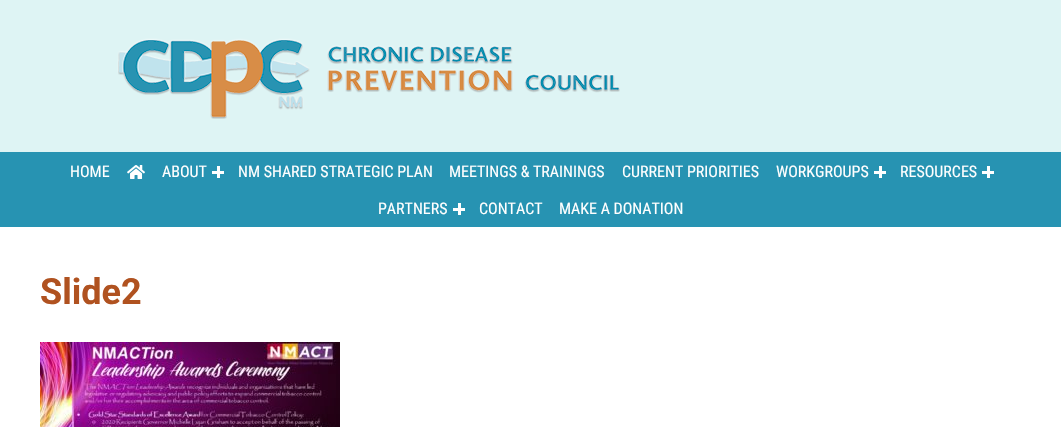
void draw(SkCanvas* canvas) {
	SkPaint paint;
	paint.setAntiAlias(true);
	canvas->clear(0xffffffff);
	paint.setColor(0xffdef4f4);
	canvas->drawRect(SkRect::MakeXYWH(0, 0, 1061, 152), paint);
	canvas->drawImageRect(SkImages::DeferredFromEncodedData(SkData::MakeFromFileName("img1.png")), SkRect::MakeXYWH(117, 38, 503, 81), SkSamplingOptions());
	paint.setColor(0xff2793b2);
	canvas->drawRect(SkRect::MakeXYWH(0, 152, 1061, 75), paint);
	SkFont f1(fontMgr->matchFamilyStyle("Roboto Condensed", SkFontStyle::Normal()), 16);
	f1.setSubpixel(true);
	paint.setColor(0xffffffff);
	canvas->drawString("HOME", 70, 177, f1, paint);
	canvas->drawImageRect(SkImages::DeferredFromEncodedData(SkData::MakeFromFileName("img2.png")), SkRect::MakeXYWH(127, 165, 18, 14), SkSamplingOptions());
	canvas->drawString("ABOUT", 162, 177, f1, paint);
	canvas->drawRect(SkRect::MakeXYWH(212, 171, 12, 3), paint);
	canvas->drawRect(SkRect::MakeXYWH(217, 166, 3, 12), paint);
	canvas->drawString("NM SHARED STRATEGIC PLAN", 238, 177, f1, paint);
	canvas->drawString("MEETINGS & TRAININGS", 449, 177, f1, paint);
	canvas->drawString("CURRENT PRIORITIES", 622, 177, f1, paint);
	canvas->drawString("WORKGROUPS", 776, 177, f1, paint);
	canvas->drawRect(SkRect::MakeXYWH(874, 171, 12, 3), paint);
	canvas->drawRect(SkRect::MakeXYWH(879, 166, 3, 12), paint);
	canvas->drawString("RESOURCES", 900, 177, f1, paint);
	canvas->drawRect(SkRect::MakeXYWH(982, 171, 12, 3), paint);
	canvas->drawRect(SkRect::MakeXYWH(987, 166, 3, 12), paint);
	canvas->drawString("PARTNERS", 378, 214, f1, paint);
	canvas->drawRect(SkRect::MakeXYWH(453, 208, 12, 3), paint);
	canvas->drawRect(SkRect::MakeXYWH(458, 203, 3, 12), paint);
	canvas->drawString("CONTACT", 479, 214, f1, paint);
	canvas->drawString("MAKE A DONATION", 559, 214, f1, paint);
	SkFont f2(fontMgr->matchFamilyStyle("Roboto", SkFontStyle::Bold()), 36);
	f2.setSubpixel(true);
	paint.setColor(0xffb05220);
	canvas->drawString("Slide2", 40, 304, f2, paint);
	canvas->drawImageRect(SkImages::DeferredFromEncodedData(SkData::MakeFromFileName("img3.png")), SkRect::MakeXYWH(40, 342, 300, 85), SkSamplingOptions());
}
